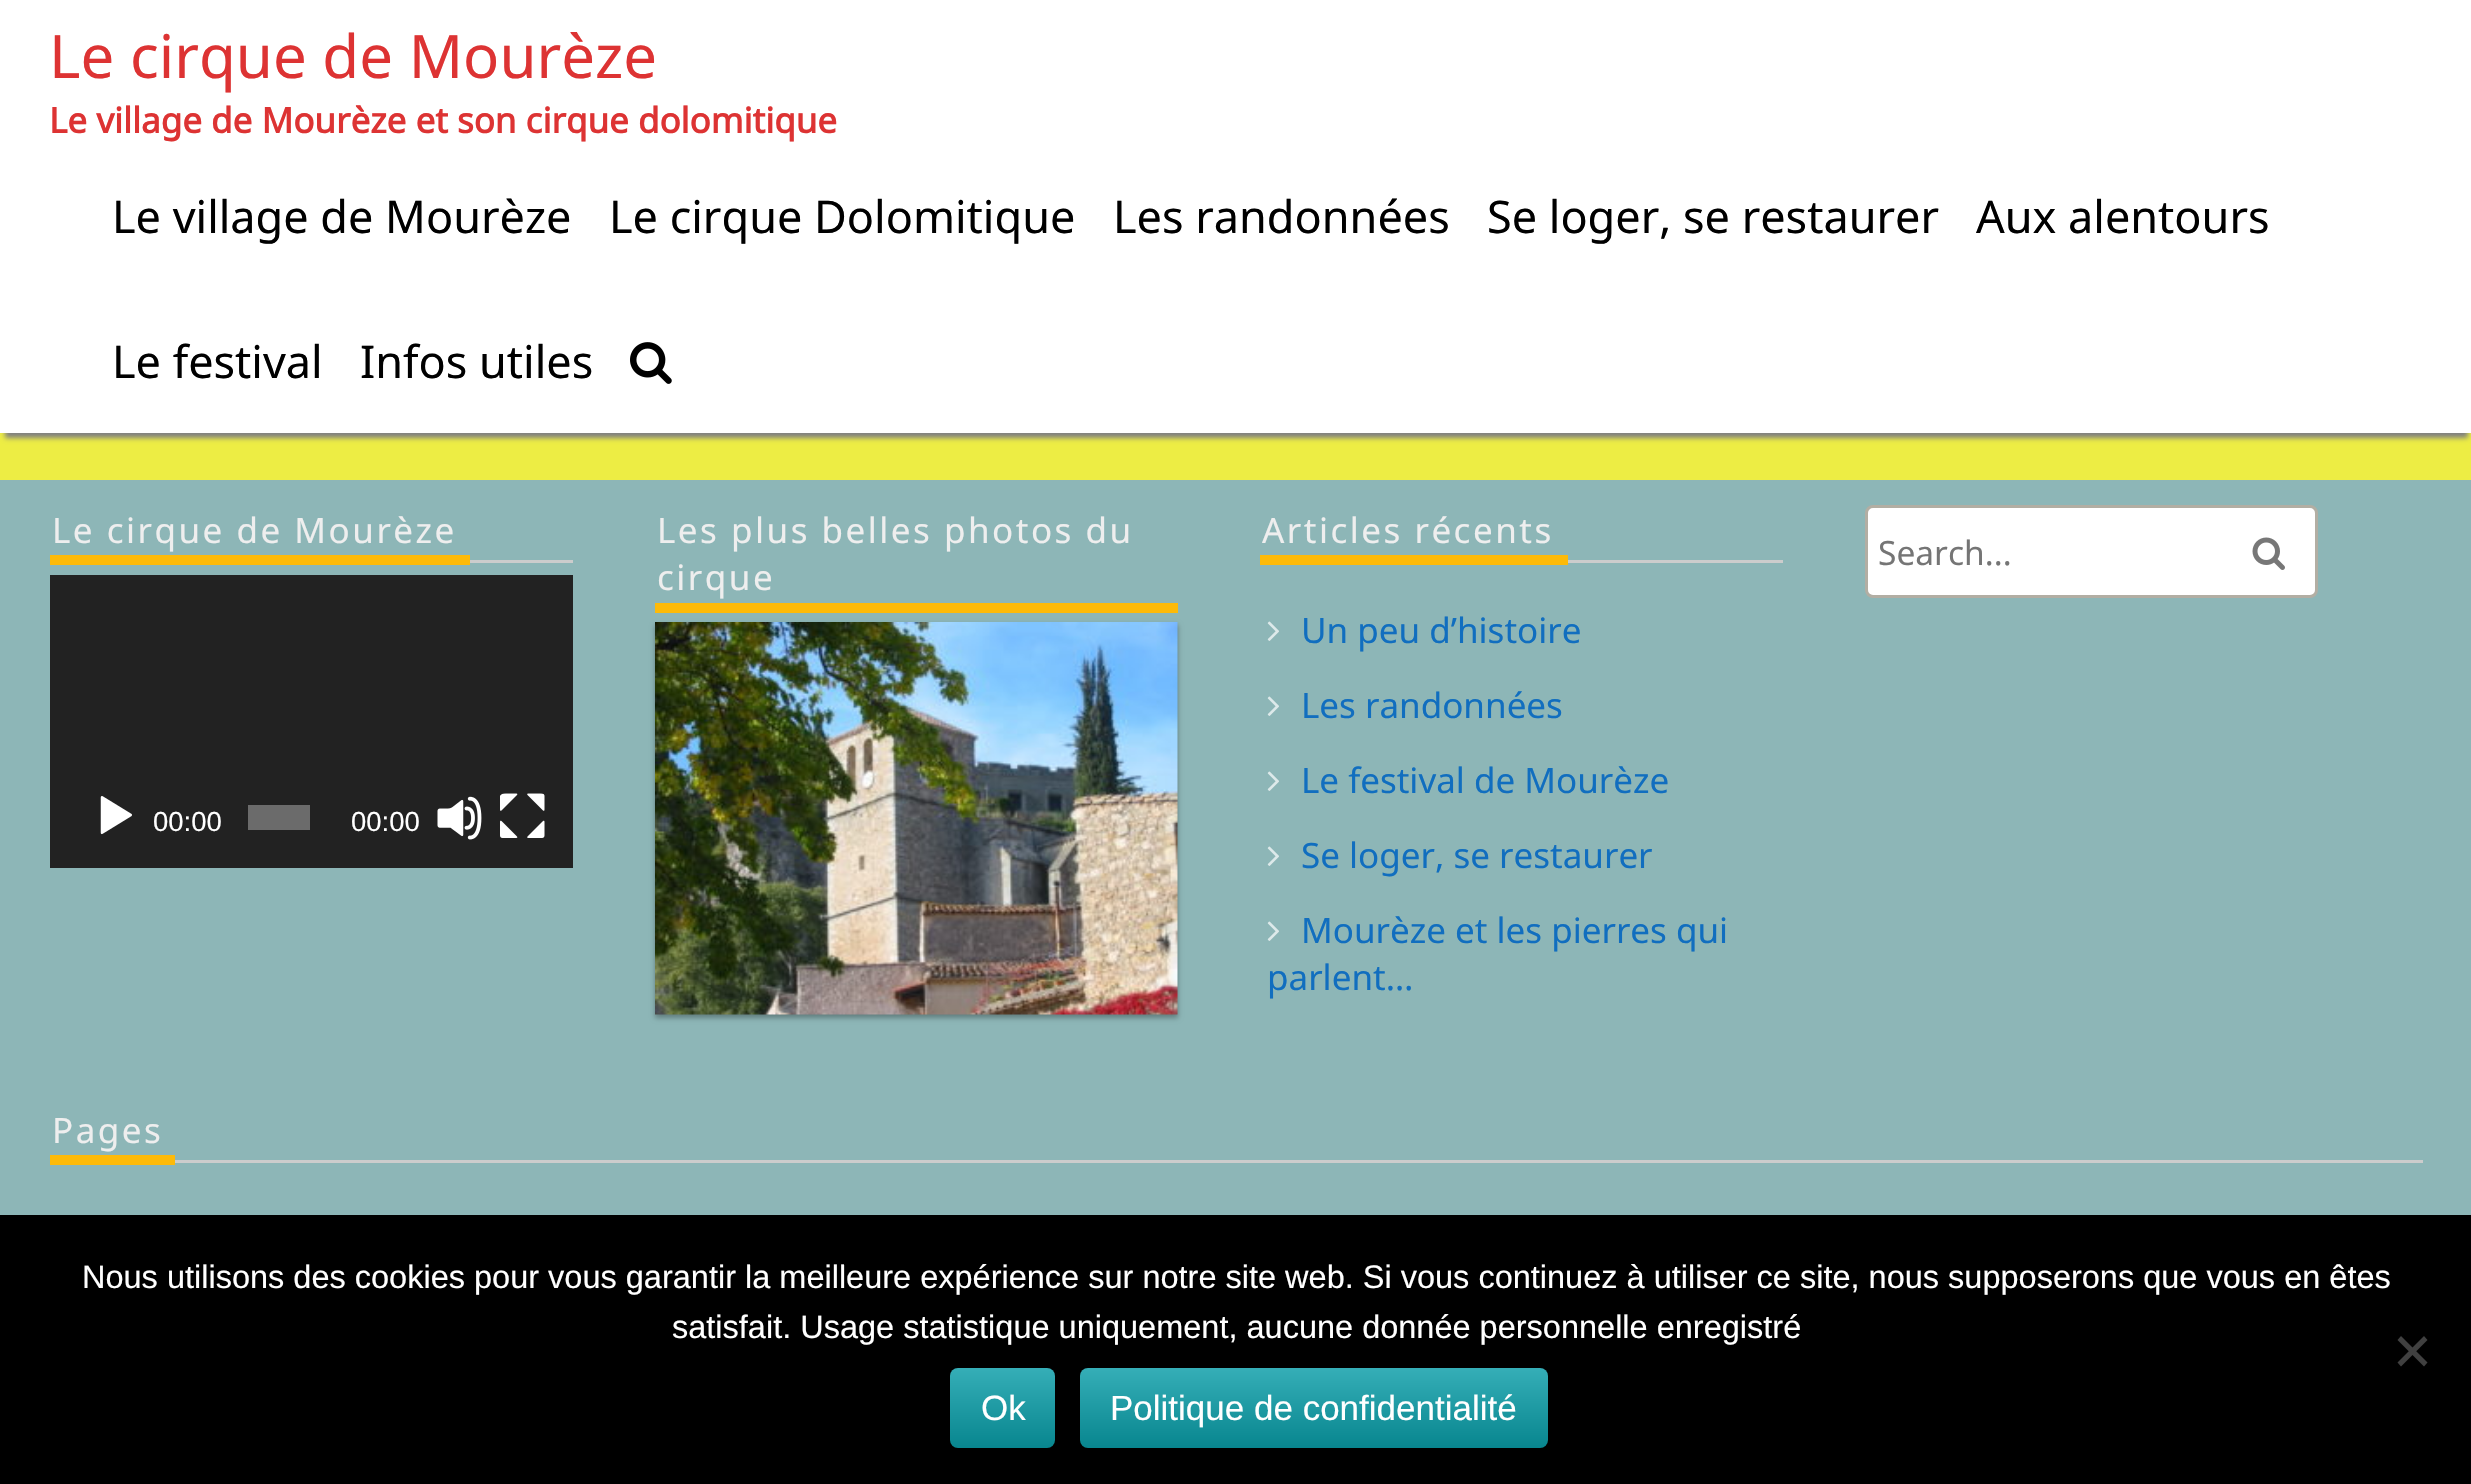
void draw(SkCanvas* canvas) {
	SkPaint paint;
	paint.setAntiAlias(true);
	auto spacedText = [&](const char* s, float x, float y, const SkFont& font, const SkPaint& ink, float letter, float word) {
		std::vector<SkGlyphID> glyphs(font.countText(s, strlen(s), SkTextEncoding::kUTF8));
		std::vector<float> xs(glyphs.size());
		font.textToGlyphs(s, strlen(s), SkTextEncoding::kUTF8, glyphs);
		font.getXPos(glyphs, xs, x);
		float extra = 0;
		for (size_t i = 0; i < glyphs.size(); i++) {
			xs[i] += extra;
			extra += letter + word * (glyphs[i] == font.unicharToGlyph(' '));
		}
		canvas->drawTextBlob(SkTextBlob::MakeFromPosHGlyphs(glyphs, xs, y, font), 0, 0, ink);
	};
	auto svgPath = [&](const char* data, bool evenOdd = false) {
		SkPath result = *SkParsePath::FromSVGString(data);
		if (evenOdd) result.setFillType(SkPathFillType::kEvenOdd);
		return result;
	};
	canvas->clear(0xffeded44);
	paint.setColor(0xff808080);
	paint.setMaskFilter(SkMaskFilter::MakeBlur(kNormal_SkBlurStyle, 2.5));
	canvas->drawRect(SkRect::MakeXYWH(5, 15, 2463, 423), paint);
	paint.setMaskFilter(nullptr);
	paint.setColor(0xffffffff);
	canvas->drawRect(SkRect::MakeXYWH(0, 0, 2471, 433), paint);
	SkFont f1(fontMgr->matchFamilyStyle("Noto Sans", SkFontStyle::Normal()), 60);
	f1.setSubpixel(true);
	paint.setColor(0xffdd3333);
	canvas->drawString("Le cirque de Mourèze", 49, 78, f1, paint);
	SkFont f2(fontMgr->matchFamilyStyle("Noto Sans", SkFontStyle::Bold()), 35);
	f2.setSubpixel(true);
	canvas->drawString("Le village de Mourèze et son cirque dolomitique", 49, 133, f2, paint);
	SkFont f3(fontMgr->matchFamilyStyle("Noto Sans", SkFontStyle::Normal()), 45);
	f3.setSubpixel(true);
	paint.setColor(0xff000000);
	canvas->drawString("Le village de Mourèze", 112, 233, f3, paint);
	canvas->drawString("Le cirque Dolomitique", 609, 233, f3, paint);
	canvas->drawString("Les randonnées", 1113, 233, f3, paint);
	canvas->drawString("Se loger, se restaurer", 1487, 233, f3, paint);
	canvas->drawString("Aux alentours", 1976, 233, f3, paint);
	canvas->drawString("Le festival", 112, 378, f3, paint);
	canvas->drawString("Infos utiles", 360, 378, f3, paint);
	canvas->drawImageRect(SkImages::DeferredFromEncodedData(SkData::MakeFromFileName("img1.png")), SkRect::MakeXYWH(630, 342, 42, 42), SkSamplingOptions());
	paint.setColor(0xff8db6b7);
	canvas->drawRect(SkRect::MakeXYWH(0, 480, 2471, 735), paint);
	paint.setColor(0xfffdba09);
	canvas->drawRect(SkRect::MakeXYWH(50, 555, 420, 10), paint);
	SkFont f4(fontMgr->matchFamilyStyle("Noto Sans", SkFontStyle::Normal()), 35);
	f4.setSubpixel(true);
	paint.setColor(0xffeeeeee);
	spacedText("Le cirque de Mourèze", 52, 543, f4, paint, 2.5, 0);
	paint.setColor(0xffcccccc);
	canvas->drawRect(SkRect::MakeXYWH(470, 560, 103, 3), paint);
	paint.setColor(0xff222222);
	canvas->drawRect(SkRect::MakeXYWH(50, 575, 523, 293), paint);
	canvas->drawImageRect(SkImages::DeferredFromEncodedData(SkData::MakeFromFileName("img2.png")), SkRect::MakeXYWH(100, 796, 32, 39), SkSamplingOptions());
	SkFont f5(fontMgr->matchFamilyStyle("Liberation Sans", SkFontStyle::Normal()), 27.5);
	f5.setSubpixel(true);
	paint.setColor(0xffffffff);
	canvas->drawString("00:00", 153, 831, f5, paint);
	paint.setColor(0xff6b6b6b);
	canvas->drawRect(SkRect::MakeXYWH(248, 805, 62, 25), paint);
	paint.setColor(0xffffffff);
	canvas->drawString("00:00", 351, 831, f5, paint);
	canvas->drawImageRect(SkImages::DeferredFromEncodedData(SkData::MakeFromFileName("img3.png")), SkRect::MakeXYWH(437, 796, 45, 44), SkSamplingOptions());
	canvas->drawImageRect(SkImages::DeferredFromEncodedData(SkData::MakeFromFileName("img4.png")), SkRect::MakeXYWH(500, 793, 45, 45), SkSamplingOptions());
	paint.setColor(0xfffdba09);
	canvas->drawRect(SkRect::MakeXYWH(655, 603, 523, 10), paint);
	paint.setColor(0xffeeeeee);
	spacedText("Les plus belles photos du", 657, 543, f4, paint, 2.5, 0);
	spacedText("cirque", 657, 590, f4, paint, 2.5, 0);
	paint.setColor(0x4d000000);
	paint.setMaskFilter(SkMaskFilter::MakeBlur(kNormal_SkBlurStyle, 2.5));
	canvas->drawRect(SkRect::MakeXYWH(655, 625, 523, 393), paint);
	paint.setMaskFilter(nullptr);
	canvas->drawImageRect(SkImages::DeferredFromEncodedData(SkData::MakeFromFileName("img5.png")), SkRect::MakeXYWH(655, 622, 523, 393), SkSamplingOptions());
	paint.setColor(0xfffdba09);
	canvas->drawRect(SkRect::MakeXYWH(1260, 555, 308, 10), paint);
	paint.setColor(0xffeeeeee);
	spacedText("Articles récents", 1262, 543, f4, paint, 2.5, 0);
	paint.setColor(0xffcccccc);
	canvas->drawRect(SkRect::MakeXYWH(1568, 560, 215, 3), paint);
	canvas->drawImageRect(SkImages::DeferredFromEncodedData(SkData::MakeFromFileName("img6.png")), SkRect::MakeXYWH(1267, 621, 12, 20), SkSamplingOptions());
	paint.setColor(0xff116ebf);
	canvas->drawString("Un peu d’histoire", 1301, 643, f4, paint);
	canvas->drawImageRect(SkImages::DeferredFromEncodedData(SkData::MakeFromFileName("img6.png")), SkRect::MakeXYWH(1267, 696, 12, 20), SkSamplingOptions());
	canvas->drawString("Les randonnées", 1301, 718, f4, paint);
	canvas->drawImageRect(SkImages::DeferredFromEncodedData(SkData::MakeFromFileName("img6.png")), SkRect::MakeXYWH(1267, 771, 12, 20), SkSamplingOptions());
	canvas->drawString("Le festival de Mourèze", 1301, 793, f4, paint);
	canvas->drawImageRect(SkImages::DeferredFromEncodedData(SkData::MakeFromFileName("img6.png")), SkRect::MakeXYWH(1267, 846, 12, 20), SkSamplingOptions());
	canvas->drawString("Se loger, se restaurer", 1301, 868, f4, paint);
	canvas->drawImageRect(SkImages::DeferredFromEncodedData(SkData::MakeFromFileName("img6.png")), SkRect::MakeXYWH(1267, 921, 12, 20), SkSamplingOptions());
	canvas->drawString("Mourèze et les pierres qui", 1301, 943, f4, paint);
	canvas->drawString("parlent…", 1267, 990, f4, paint);
	paint.setColor(0xffffffff);
	canvas->drawRoundRect(SkRect::MakeXYWH(1866.5, 506.5, 450, 90), 6.5, 6.5, paint);
	paint.setStroke(true);
	paint.setStrokeWidth(3);
	paint.setColor(0xffb2aea3);
	canvas->drawRoundRect(SkRect::MakeXYWH(1866.5, 506.5, 450, 90), 6.5, 6.5, paint);
	SkFont f6(fontMgr->matchFamilyStyle("Noto Sans", SkFontStyle::Normal()), 33.5);
	f6.setSubpixel(true);
	paint.setStroke(false);
	paint.setColor(0xff757575);
	canvas->drawString("Search...", 1878, 565, f6, paint);
	canvas->drawImageRect(SkImages::DeferredFromEncodedData(SkData::MakeFromFileName("img7.png")), SkRect::MakeXYWH(2252, 537, 33, 33), SkSamplingOptions());
	paint.setColor(0xfffdba09);
	canvas->drawRect(SkRect::MakeXYWH(50, 1155, 125, 10), paint);
	paint.setColor(0xffeeeeee);
	spacedText("Pages", 52, 1143, f4, paint, 2.5, 0);
	paint.setColor(0xffcccccc);
	canvas->drawRect(SkRect::MakeXYWH(175, 1160, 2248, 3), paint);
	paint.setColor(0xff000000);
	canvas->drawRect(SkRect::MakeXYWH(0, 1215, 2471, 269), paint);
	SkFont f7(fontMgr->matchFamilyStyle("Liberation Sans", SkFontStyle::Normal()), 32.5);
	f7.setSubpixel(true);
	paint.setColor(0xffffffff);
	canvas->drawString("Nous utilisons des cookies pour vous garantir la meilleure expérience sur notre site web. Si vous continuez à utiliser ce site, nous supposerons que vous en êtes", 82, 1288, f7, paint);
	canvas->drawString("satisfait. Usage statistique uniquement, aucune donnée personnelle enregistré", 672, 1338, f7, paint);
	paint.setColor(0xff404040);
	canvas->drawPath(svgPath("M2424 1336L2427.5 1340L2401 1366.5L2397.5 1362.5Z"), paint);
	canvas->drawPath(svgPath("M2397.5 1340L2401 1336L2427.5 1362.5L2424 1366.5Z"), paint);
	{
		const SkColor colors[] = {0xff35aeb7, 0xff08868f};
		const float stops[] = {0, 1};
		const SkPoint ends[] = {{1003, 1368}, {1003, 1448}};
		paint.setShader(SkGradientShader::MakeLinear(ends, colors, stops, 2, SkTileMode::kClamp));
		paint.setAlpha(255);
	}
	canvas->drawRoundRect(SkRect::MakeXYWH(950, 1368, 105, 80), 8, 8, paint);
	SkFont f8(fontMgr->matchFamilyStyle("Liberation Sans", SkFontStyle::Normal()), 35);
	f8.setSubpixel(true);
	paint.setShader(nullptr);
	paint.setColor(0xffffffff);
	canvas->drawString("Ok", 981, 1420, f8, paint);
	{
		const SkColor colors[] = {0xff35aeb7, 0xff08868f};
		const float stops[] = {0, 1};
		const SkPoint ends[] = {{1314, 1368}, {1314, 1448}};
		paint.setShader(SkGradientShader::MakeLinear(ends, colors, stops, 2, SkTileMode::kClamp));
		paint.setAlpha(255);
	}
	canvas->drawRoundRect(SkRect::MakeXYWH(1080, 1368, 468, 80), 8, 8, paint);
	paint.setShader(nullptr);
	paint.setColor(0xffffffff);
	canvas->drawString("Politique de confidentialité", 1110, 1420, f8, paint);
}
